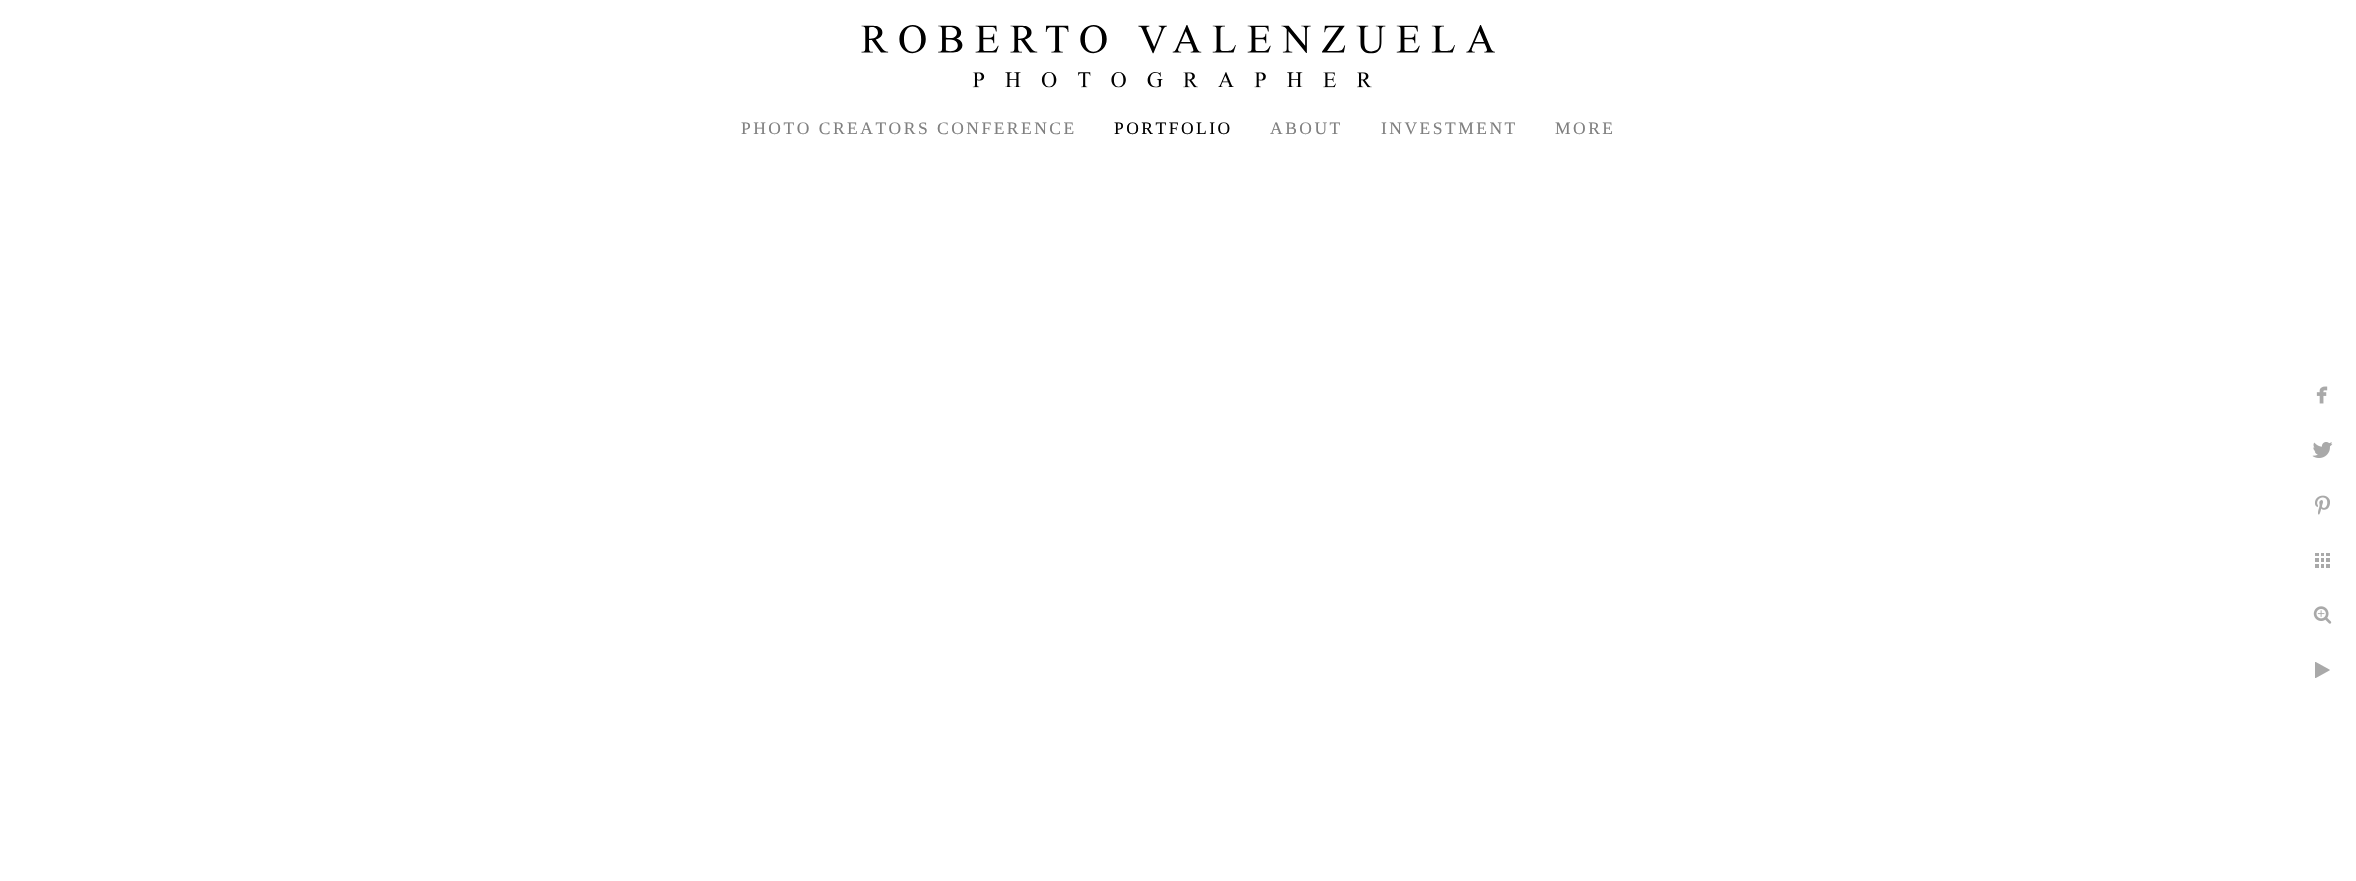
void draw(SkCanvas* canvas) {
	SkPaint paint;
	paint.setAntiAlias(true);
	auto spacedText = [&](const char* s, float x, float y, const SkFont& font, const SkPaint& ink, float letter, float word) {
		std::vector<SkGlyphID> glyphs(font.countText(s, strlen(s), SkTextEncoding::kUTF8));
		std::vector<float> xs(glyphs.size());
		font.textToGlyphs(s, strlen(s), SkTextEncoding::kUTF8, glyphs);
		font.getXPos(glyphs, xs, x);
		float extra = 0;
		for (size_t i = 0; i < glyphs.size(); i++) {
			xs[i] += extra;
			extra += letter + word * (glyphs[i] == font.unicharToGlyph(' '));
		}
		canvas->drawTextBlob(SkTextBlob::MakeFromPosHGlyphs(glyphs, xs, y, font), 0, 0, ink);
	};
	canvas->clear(0xffffffff);
	canvas->drawImageRect(SkImages::DeferredFromEncodedData(SkData::MakeFromFileName("img1.png")), SkRect::MakeXYWH(861, 25, 634, 63), SkSamplingOptions());
	SkFont f1(fontMgr->matchFamilyStyle("Liberation Serif", SkFontStyle::Normal()), 17.5);
	f1.setSubpixel(true);
	paint.setColor(0xff808080);
	spacedText("PHOTO CREATORS CONFERENCE", 741, 134, f1, paint, 2.5, 0);
	paint.setColor(0xff000000);
	spacedText("PORTFOLIO", 1114, 134, f1, paint, 2.5, 0);
	paint.setColor(0xff808080);
	spacedText("ABOUT", 1270, 134, f1, paint, 2.5, 0);
	spacedText("INVESTMENT", 1381, 134, f1, paint, 2.5, 0);
	spacedText("MORE", 1555, 134, f1, paint, 2.5, 0);
	canvas->drawImageRect(SkImages::DeferredFromEncodedData(SkData::MakeFromFileName("img2.png")), SkRect::MakeXYWH(2316, 386, 12, 18), SkSamplingOptions());
	canvas->drawImageRect(SkImages::DeferredFromEncodedData(SkData::MakeFromFileName("img3.png")), SkRect::MakeXYWH(2312, 442, 21, 16), SkSamplingOptions());
	canvas->drawImageRect(SkImages::DeferredFromEncodedData(SkData::MakeFromFileName("img4.png")), SkRect::MakeXYWH(2315, 495, 15, 20), SkSamplingOptions());
	canvas->drawImageRect(SkImages::DeferredFromEncodedData(SkData::MakeFromFileName("img5.png")), SkRect::MakeXYWH(2315, 553, 15, 15), SkSamplingOptions());
	canvas->drawImageRect(SkImages::DeferredFromEncodedData(SkData::MakeFromFileName("img6.png")), SkRect::MakeXYWH(2313, 606, 19, 18), SkSamplingOptions());
	canvas->drawImageRect(SkImages::DeferredFromEncodedData(SkData::MakeFromFileName("img7.png")), SkRect::MakeXYWH(2315, 662, 15, 16), SkSamplingOptions());
}
